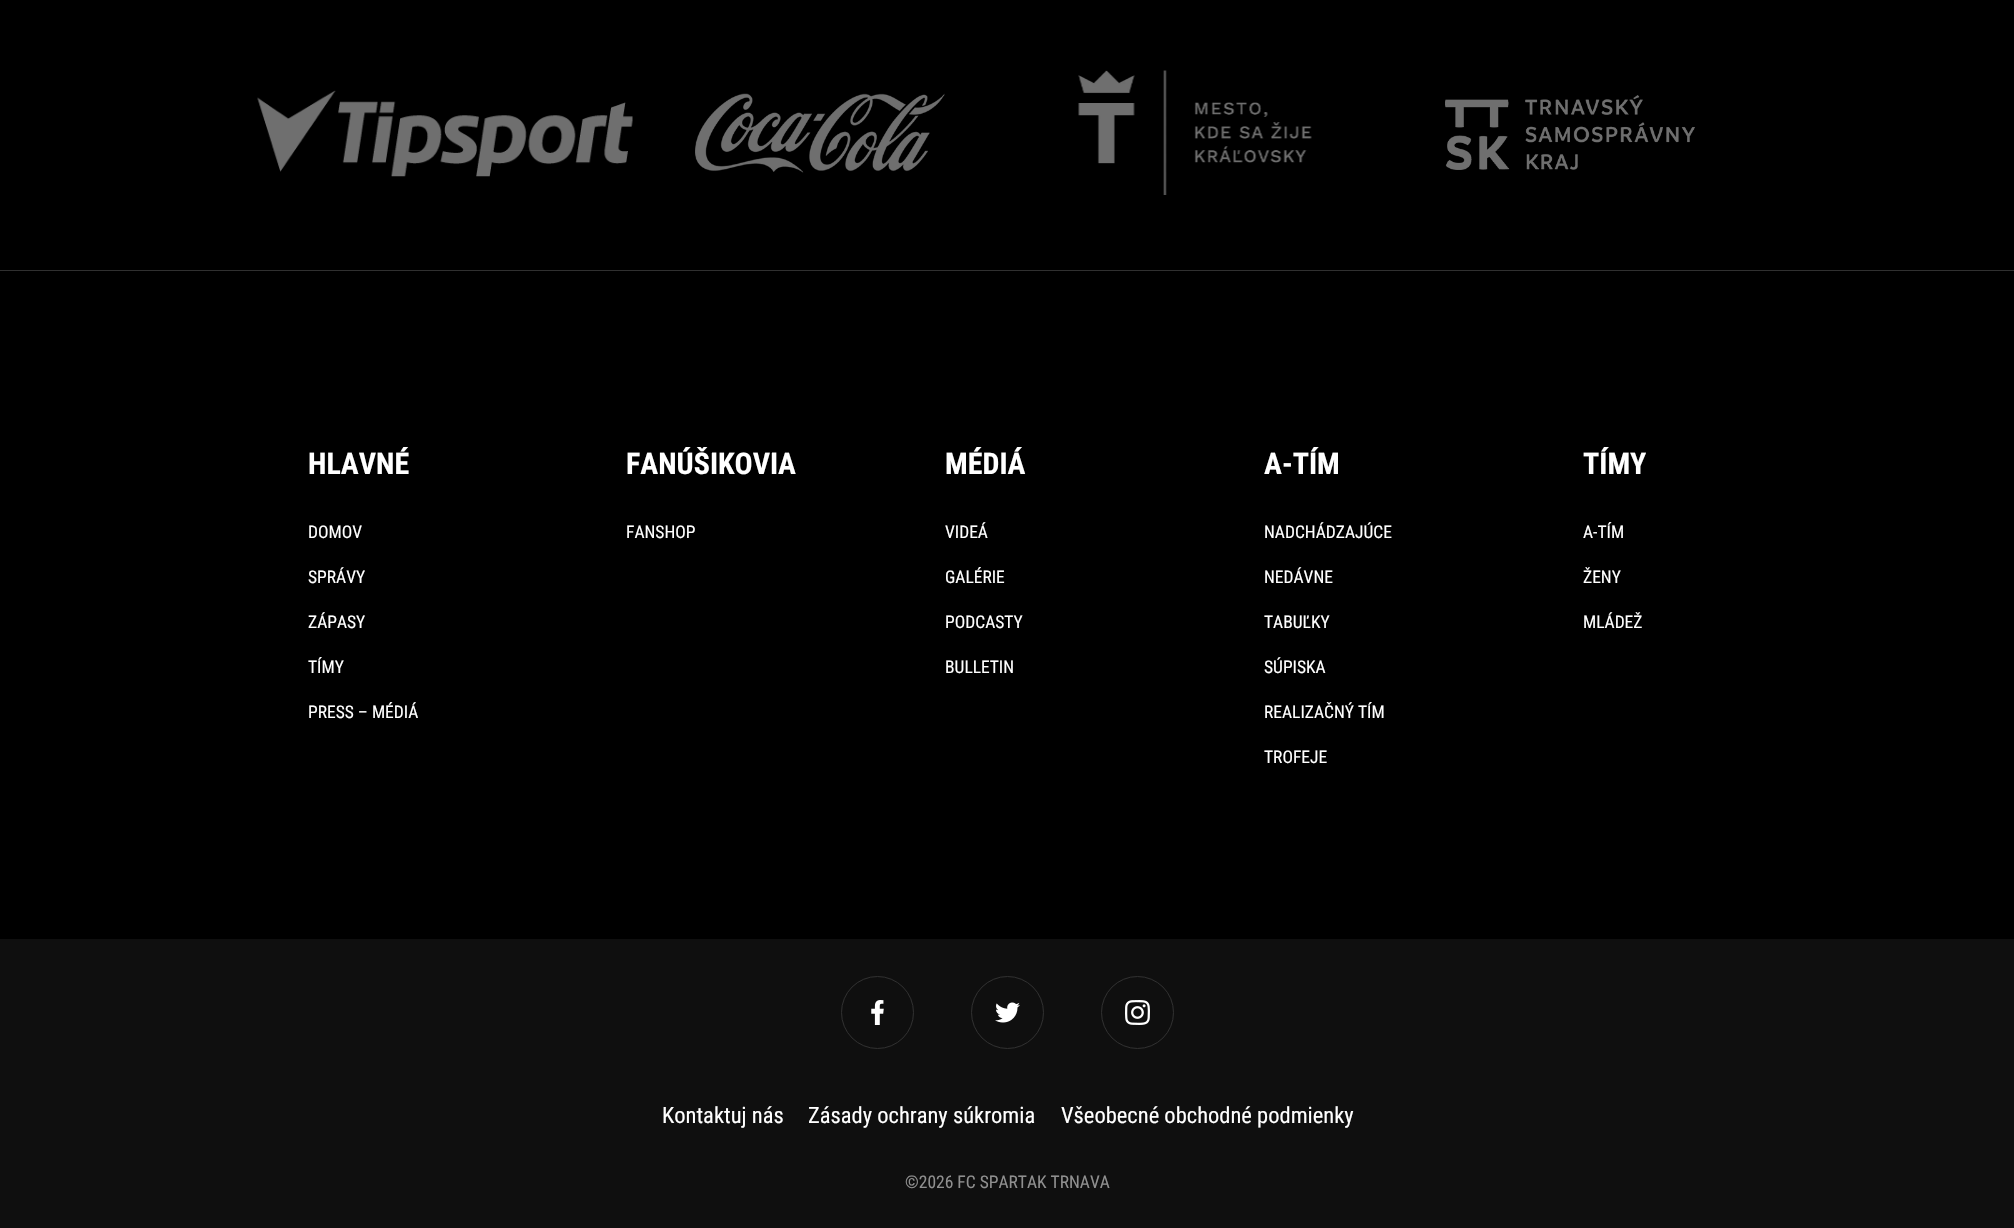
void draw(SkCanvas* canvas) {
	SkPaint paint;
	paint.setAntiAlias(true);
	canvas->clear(0xff000000);
	paint.setColor(0xff303030);
	canvas->drawRect(SkRect::MakeXYWH(0, 270, 2014, 1), paint);
	canvas->drawImageRect(SkImages::DeferredFromEncodedData(SkData::MakeFromFileName("img1.png")), SkRect::MakeXYWH(257, 90, 376, 87), SkSamplingOptions());
	canvas->drawImageRect(SkImages::DeferredFromEncodedData(SkData::MakeFromFileName("img2.png")), SkRect::MakeXYWH(695, 93, 250, 80), SkSamplingOptions());
	canvas->drawImageRect(SkImages::DeferredFromEncodedData(SkData::MakeFromFileName("img3.png")), SkRect::MakeXYWH(1078, 70, 234, 125), SkSamplingOptions());
	canvas->drawImageRect(SkImages::DeferredFromEncodedData(SkData::MakeFromFileName("img4.png")), SkRect::MakeXYWH(1445, 95, 250, 75), SkSamplingOptions());
	SkFont f1(fontMgr->matchFamilyStyle("Roboto Condensed", SkFontStyle::Bold()), 30);
	f1.setSubpixel(true);
	paint.setColor(0xffffffff);
	canvas->drawString("HLAVNÉ", 308, 474, f1, paint);
	SkFont f2(fontMgr->matchFamilyStyle("Roboto Condensed", SkFontStyle::Normal()), 17.5);
	f2.setSubpixel(true);
	canvas->drawString("DOMOV", 308, 538, f2, paint);
	canvas->drawString("SPRÁVY", 308, 583, f2, paint);
	canvas->drawString("ZÁPASY", 308, 628, f2, paint);
	canvas->drawString("TÍMY", 308, 673, f2, paint);
	canvas->drawString("PRESS – MÉDIÁ", 308, 718, f2, paint);
	canvas->drawString("FANÚŠIKOVIA", 626, 474, f1, paint);
	canvas->drawString("FANSHOP", 626, 538, f2, paint);
	canvas->drawString("MÉDIÁ", 945, 474, f1, paint);
	canvas->drawString("VIDEÁ", 945, 538, f2, paint);
	canvas->drawString("GALÉRIE", 945, 583, f2, paint);
	canvas->drawString("PODCASTY", 945, 628, f2, paint);
	canvas->drawString("BULLETIN", 945, 673, f2, paint);
	canvas->drawString("A-TÍM", 1264, 474, f1, paint);
	canvas->drawString("NADCHÁDZAJÚCE", 1264, 538, f2, paint);
	canvas->drawString("NEDÁVNE", 1264, 583, f2, paint);
	canvas->drawString("TABUĽKY", 1264, 628, f2, paint);
	canvas->drawString("SÚPISKA", 1264, 673, f2, paint);
	canvas->drawString("REALIZAČNÝ TÍM", 1264, 718, f2, paint);
	canvas->drawString("TROFEJE", 1264, 763, f2, paint);
	canvas->drawString("TÍMY", 1583, 474, f1, paint);
	canvas->drawString("A-TÍM", 1583, 538, f2, paint);
	canvas->drawString("ŽENY", 1583, 583, f2, paint);
	canvas->drawString("MLÁDEŽ", 1583, 628, f2, paint);
	paint.setColor(0xff0f0f0f);
	canvas->drawRect(SkRect::MakeXYWH(0, 939, 2014, 289), paint);
	paint.setStroke(true);
	paint.setStrokeWidth(1);
	paint.setColor(0xff303030);
	canvas->drawCircle(877.5, 1012.5, 36, paint);
	canvas->drawImageRect(SkImages::DeferredFromEncodedData(SkData::MakeFromFileName("img5.png")), SkRect::MakeXYWH(871, 1000, 13, 25), SkSamplingOptions());
	canvas->drawCircle(1007.5, 1012.5, 36, paint);
	canvas->drawImageRect(SkImages::DeferredFromEncodedData(SkData::MakeFromFileName("img6.png")), SkRect::MakeXYWH(995, 1002, 25, 21), SkSamplingOptions());
	canvas->drawCircle(1137.5, 1012.5, 36, paint);
	canvas->drawImageRect(SkImages::DeferredFromEncodedData(SkData::MakeFromFileName("img7.png")), SkRect::MakeXYWH(1125, 1000, 25, 25), SkSamplingOptions());
	SkFont f3(fontMgr->matchFamilyStyle("Roboto Condensed", SkFontStyle::Normal()), 22.5);
	f3.setSubpixel(true);
	paint.setStroke(false);
	paint.setColor(0xffffffff);
	canvas->drawString("Kontaktuj nás", 662, 1123, f3, paint);
	canvas->drawString("Zásady ochrany súkromia", 808, 1123, f3, paint);
	canvas->drawString("Všeobecné obchodné podmienky", 1061, 1123, f3, paint);
	paint.setColor(0xff8f8f8f);
	canvas->drawString("©2026 FC SPARTAK TRNAVA", 905, 1188, f2, paint);
}
